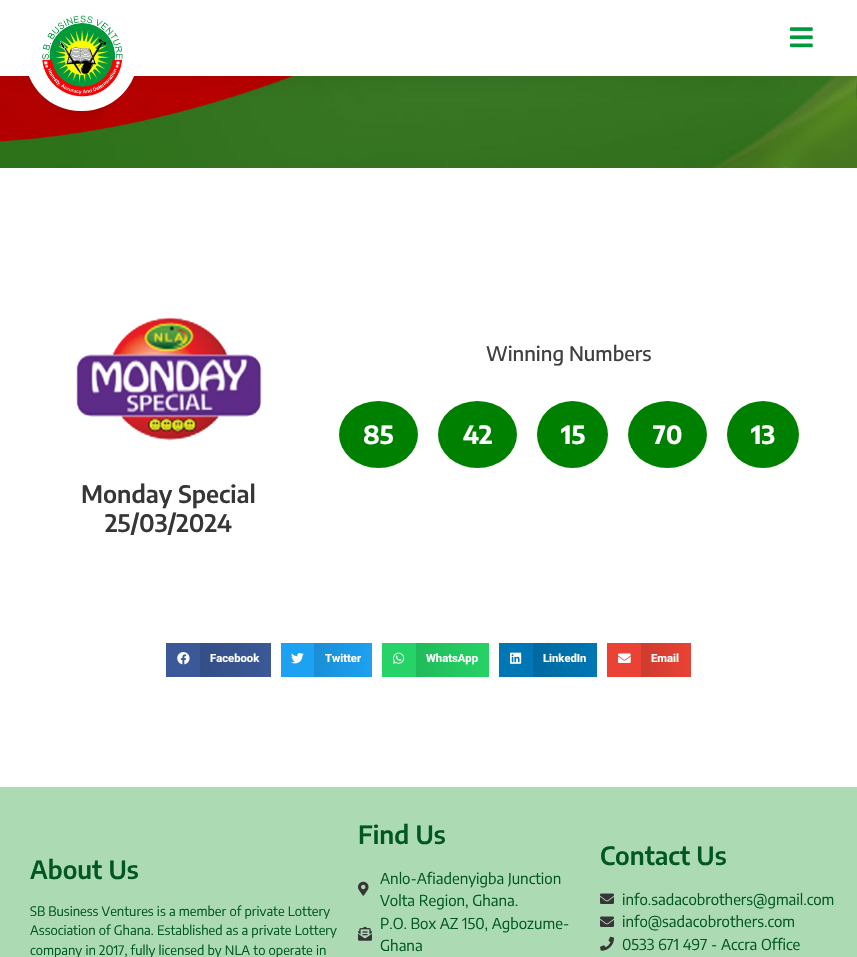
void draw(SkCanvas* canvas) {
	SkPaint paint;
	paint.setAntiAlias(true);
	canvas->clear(0xffffffff);
	canvas->drawImageRect(SkImages::DeferredFromEncodedData(SkData::MakeFromFileName("img3.png")), SkRect::MakeXYWH(0, 76, 857, 92), SkSamplingOptions());
	paint.setColor(0x17000000);
	paint.setMaskFilter(SkMaskFilter::MakeBlur(kNormal_SkBlurStyle, 11.5));
	canvas->drawRect(SkRect::MakeXYWH(-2, -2, 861, 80), paint);
	paint.setMaskFilter(nullptr);
	paint.setColor(0xffffffff);
	canvas->drawRect(SkRect::MakeXYWH(0, 0, 857, 76), paint);
	paint.setColor(0x2b000000);
	paint.setMaskFilter(SkMaskFilter::MakeBlur(kNormal_SkBlurStyle, 7.5));
	canvas->drawRoundRect(SkRect::MakeXYWH(40, 30, 83, 81), 40.5, 40.5, paint);
	paint.setMaskFilter(nullptr);
	paint.setColor(0xffffffff);
	canvas->drawRoundRect(SkRect::MakeXYWH(25, 0, 113, 111), 55.5, 55.5, paint);
	canvas->drawImageRect(SkImages::DeferredFromEncodedData(SkData::MakeFromFileName("img1.png")), SkRect::MakeXYWH(42, 15, 81, 82), SkSamplingOptions());
	canvas->drawImageRect(SkImages::DeferredFromEncodedData(SkData::MakeFromFileName("img2.png")), SkRect::MakeXYWH(790, 27, 23, 21), SkSamplingOptions());
	SkFont f1(fontMgr->matchFamilyStyle("Encode Sans Condensed", SkFontStyle(500, SkFontStyle::kNormal_Width, SkFontStyle::kUpright_Slant)), 20);
	f1.setSubpixel(true);
	paint.setColor(0xff404040);
	canvas->drawString("Winning Numbers", 486, 361, f1, paint);
	paint.setColor(0xff008000);
	canvas->drawOval(SkRect::MakeXYWH(339, 401, 79, 67), paint);
	SkFont f2(fontMgr->matchFamilyStyle("Encode Sans Condensed", SkFontStyle::Bold()), 25);
	f2.setSubpixel(true);
	paint.setColor(0xffffffff);
	canvas->drawString("85", 363, 444, f2, paint);
	paint.setColor(0xff008000);
	canvas->drawOval(SkRect::MakeXYWH(438, 401, 79, 67), paint);
	paint.setColor(0xffffffff);
	canvas->drawString("42", 463, 444, f2, paint);
	paint.setColor(0xff008000);
	canvas->drawOval(SkRect::MakeXYWH(537, 401, 71, 67), paint);
	paint.setColor(0xffffffff);
	canvas->drawString("15", 561, 444, f2, paint);
	paint.setColor(0xff008000);
	canvas->drawOval(SkRect::MakeXYWH(628, 401, 79, 67), paint);
	paint.setColor(0xffffffff);
	canvas->drawString("70", 653, 444, f2, paint);
	paint.setColor(0xff008000);
	canvas->drawOval(SkRect::MakeXYWH(727, 401, 72, 67), paint);
	paint.setColor(0xffffffff);
	canvas->drawString("13", 751, 444, f2, paint);
	canvas->drawImageRect(SkImages::DeferredFromEncodedData(SkData::MakeFromFileName("img4.png")), SkRect::MakeXYWH(76, 317, 186, 124), SkSamplingOptions());
	SkFont f3(fontMgr->matchFamilyStyle("Encode Sans Condensed", SkFontStyle(600, SkFontStyle::kNormal_Width, SkFontStyle::kUpright_Slant)), 24);
	f3.setSubpixel(true);
	paint.setColor(0xff363636);
	canvas->drawString("Monday Special", 81, 503, f3, paint);
	canvas->drawString("25/03/2024", 105, 532, f3, paint);
	paint.setColor(0xff3b5998);
	canvas->drawRect(SkRect::MakeXYWH(166, 643, 34, 34), paint);
	canvas->drawImageRect(SkImages::DeferredFromEncodedData(SkData::MakeFromFileName("img5.png")), SkRect::MakeXYWH(177, 652, 13, 13), SkSamplingOptions());
	{
		const SkColor colors[] = {0xff344e86, 0xff3b5998};
		const float stops[] = {0, 1};
		const SkPoint ends[] = {{200, 660}, {271, 660}};
		paint.setShader(SkGradientShader::MakeLinear(ends, colors, stops, 2, SkTileMode::kClamp));
		paint.setAlpha(255);
	}
	canvas->drawRect(SkRect::MakeXYWH(200, 643, 71, 34), paint);
	SkFont f4(fontMgr->matchFamilyStyle("Roboto", SkFontStyle::Bold()), 11.25);
	f4.setSubpixel(true);
	paint.setShader(nullptr);
	paint.setColor(0xffffffff);
	canvas->drawString("Facebook", 210, 662, f4, paint);
	paint.setColor(0xff1da1f2);
	canvas->drawRect(SkRect::MakeXYWH(281, 643, 33, 34), paint);
	canvas->drawImageRect(SkImages::DeferredFromEncodedData(SkData::MakeFromFileName("img6.png")), SkRect::MakeXYWH(291, 653, 13, 11), SkSamplingOptions());
	{
		const SkColor colors[] = {0xff1a8ed5, 0xff1da1f2};
		const float stops[] = {0, 1};
		const SkPoint ends[] = {{314, 660}, {372, 660}};
		paint.setShader(SkGradientShader::MakeLinear(ends, colors, stops, 2, SkTileMode::kClamp));
		paint.setAlpha(255);
	}
	canvas->drawRect(SkRect::MakeXYWH(314, 643, 58, 34), paint);
	paint.setShader(nullptr);
	paint.setColor(0xffffffff);
	canvas->drawString("Twitter", 325, 662, f4, paint);
	paint.setColor(0xff25d366);
	canvas->drawRect(SkRect::MakeXYWH(382, 643, 34, 34), paint);
	canvas->drawImageRect(SkImages::DeferredFromEncodedData(SkData::MakeFromFileName("img7.png")), SkRect::MakeXYWH(393, 652, 12, 12), SkSamplingOptions());
	{
		const SkColor colors[] = {0xff21ba5a, 0xff25d366};
		const float stops[] = {0, 1};
		const SkPoint ends[] = {{416, 660}, {489, 660}};
		paint.setShader(SkGradientShader::MakeLinear(ends, colors, stops, 2, SkTileMode::kClamp));
		paint.setAlpha(255);
	}
	canvas->drawRect(SkRect::MakeXYWH(416, 643, 73, 34), paint);
	paint.setShader(nullptr);
	paint.setColor(0xffffffff);
	canvas->drawString("WhatsApp", 426, 662, f4, paint);
	paint.setColor(0xff0077b5);
	canvas->drawRect(SkRect::MakeXYWH(499, 643, 34, 34), paint);
	canvas->drawImageRect(SkImages::DeferredFromEncodedData(SkData::MakeFromFileName("img8.png")), SkRect::MakeXYWH(510, 652, 12, 12), SkSamplingOptions());
	{
		const SkColor colors[] = {0xff00699f, 0xff0077b5};
		const float stops[] = {0, 1};
		const SkPoint ends[] = {{533, 660}, {597, 660}};
		paint.setShader(SkGradientShader::MakeLinear(ends, colors, stops, 2, SkTileMode::kClamp));
		paint.setAlpha(255);
	}
	canvas->drawRect(SkRect::MakeXYWH(533, 643, 64, 34), paint);
	paint.setShader(nullptr);
	paint.setColor(0xffffffff);
	canvas->drawString("LinkedIn", 543, 662, f4, paint);
	paint.setColor(0xffea4335);
	canvas->drawRect(SkRect::MakeXYWH(607, 643, 34, 34), paint);
	canvas->drawImageRect(SkImages::DeferredFromEncodedData(SkData::MakeFromFileName("img9.png")), SkRect::MakeXYWH(618, 653, 13, 10), SkSamplingOptions());
	{
		const SkColor colors[] = {0xffce3b2f, 0xffea4335};
		const float stops[] = {0, 1};
		const SkPoint ends[] = {{641, 660}, {691, 660}};
		paint.setShader(SkGradientShader::MakeLinear(ends, colors, stops, 2, SkTileMode::kClamp));
		paint.setAlpha(255);
	}
	canvas->drawRect(SkRect::MakeXYWH(641, 643, 50, 34), paint);
	paint.setShader(nullptr);
	paint.setColor(0xffffffff);
	canvas->drawString("Email", 651, 662, f4, paint);
	paint.setColor(0xffacdab2);
	canvas->drawRect(SkRect::MakeXYWH(0, 787, 857, 170), paint);
	SkFont f5(fontMgr->matchFamilyStyle("Encode Sans Condensed", SkFontStyle(600, SkFontStyle::kNormal_Width, SkFontStyle::kUpright_Slant)), 25);
	f5.setSubpixel(true);
	paint.setColor(0xff005722);
	canvas->drawString("About Us", 30, 879, f5, paint);
	SkFont f6(fontMgr->matchFamilyStyle("Encode Sans Condensed", SkFontStyle::Normal()), 13);
	f6.setSubpixel(true);
	canvas->drawString("SB Business Ventures is a member of private Lottery", 30, 916, f6, paint);
	canvas->drawString("Association of Ghana. Established as a private Lottery", 30, 935, f6, paint);
	canvas->drawString("company in 2017, fully licensed by NLA to operate in", 30, 955, f6, paint);
	canvas->drawString("Find Us", 358, 844, f5, paint);
	canvas->drawImageRect(SkImages::DeferredFromEncodedData(SkData::MakeFromFileName("img10.png")), SkRect::MakeXYWH(358, 881, 11, 15), SkSamplingOptions());
	SkFont f7(fontMgr->matchFamilyStyle("Encode Sans Condensed", SkFontStyle::Normal()), 15);
	f7.setSubpixel(true);
	canvas->drawString("Anlo-Afiadenyigba Junction", 380, 884, f7, paint);
	canvas->drawString("Volta Region, Ghana.", 380, 906, f7, paint);
	canvas->drawImageRect(SkImages::DeferredFromEncodedData(SkData::MakeFromFileName("img11.png")), SkRect::MakeXYWH(358, 926, 14, 15), SkSamplingOptions());
	canvas->drawString("P.O. Box AZ 150, Agbozume-", 380, 929, f7, paint);
	canvas->drawString("Ghana", 380, 951, f7, paint);
	canvas->drawString("Contact Us", 600, 865, f5, paint);
	canvas->drawImageRect(SkImages::DeferredFromEncodedData(SkData::MakeFromFileName("img12.png")), SkRect::MakeXYWH(600, 893, 14, 11), SkSamplingOptions());
	canvas->drawString("info.sadacobrothers@gmail.com", 622, 905, f7, paint);
	canvas->drawImageRect(SkImages::DeferredFromEncodedData(SkData::MakeFromFileName("img12.png")), SkRect::MakeXYWH(600, 916, 14, 11), SkSamplingOptions());
	canvas->drawString("info@sadacobrothers.com", 622, 927, f7, paint);
	canvas->drawImageRect(SkImages::DeferredFromEncodedData(SkData::MakeFromFileName("img13.png")), SkRect::MakeXYWH(600, 936, 14, 15), SkSamplingOptions());
	canvas->drawString("0533 671 497 - Accra Office", 622, 950, f7, paint);
}
